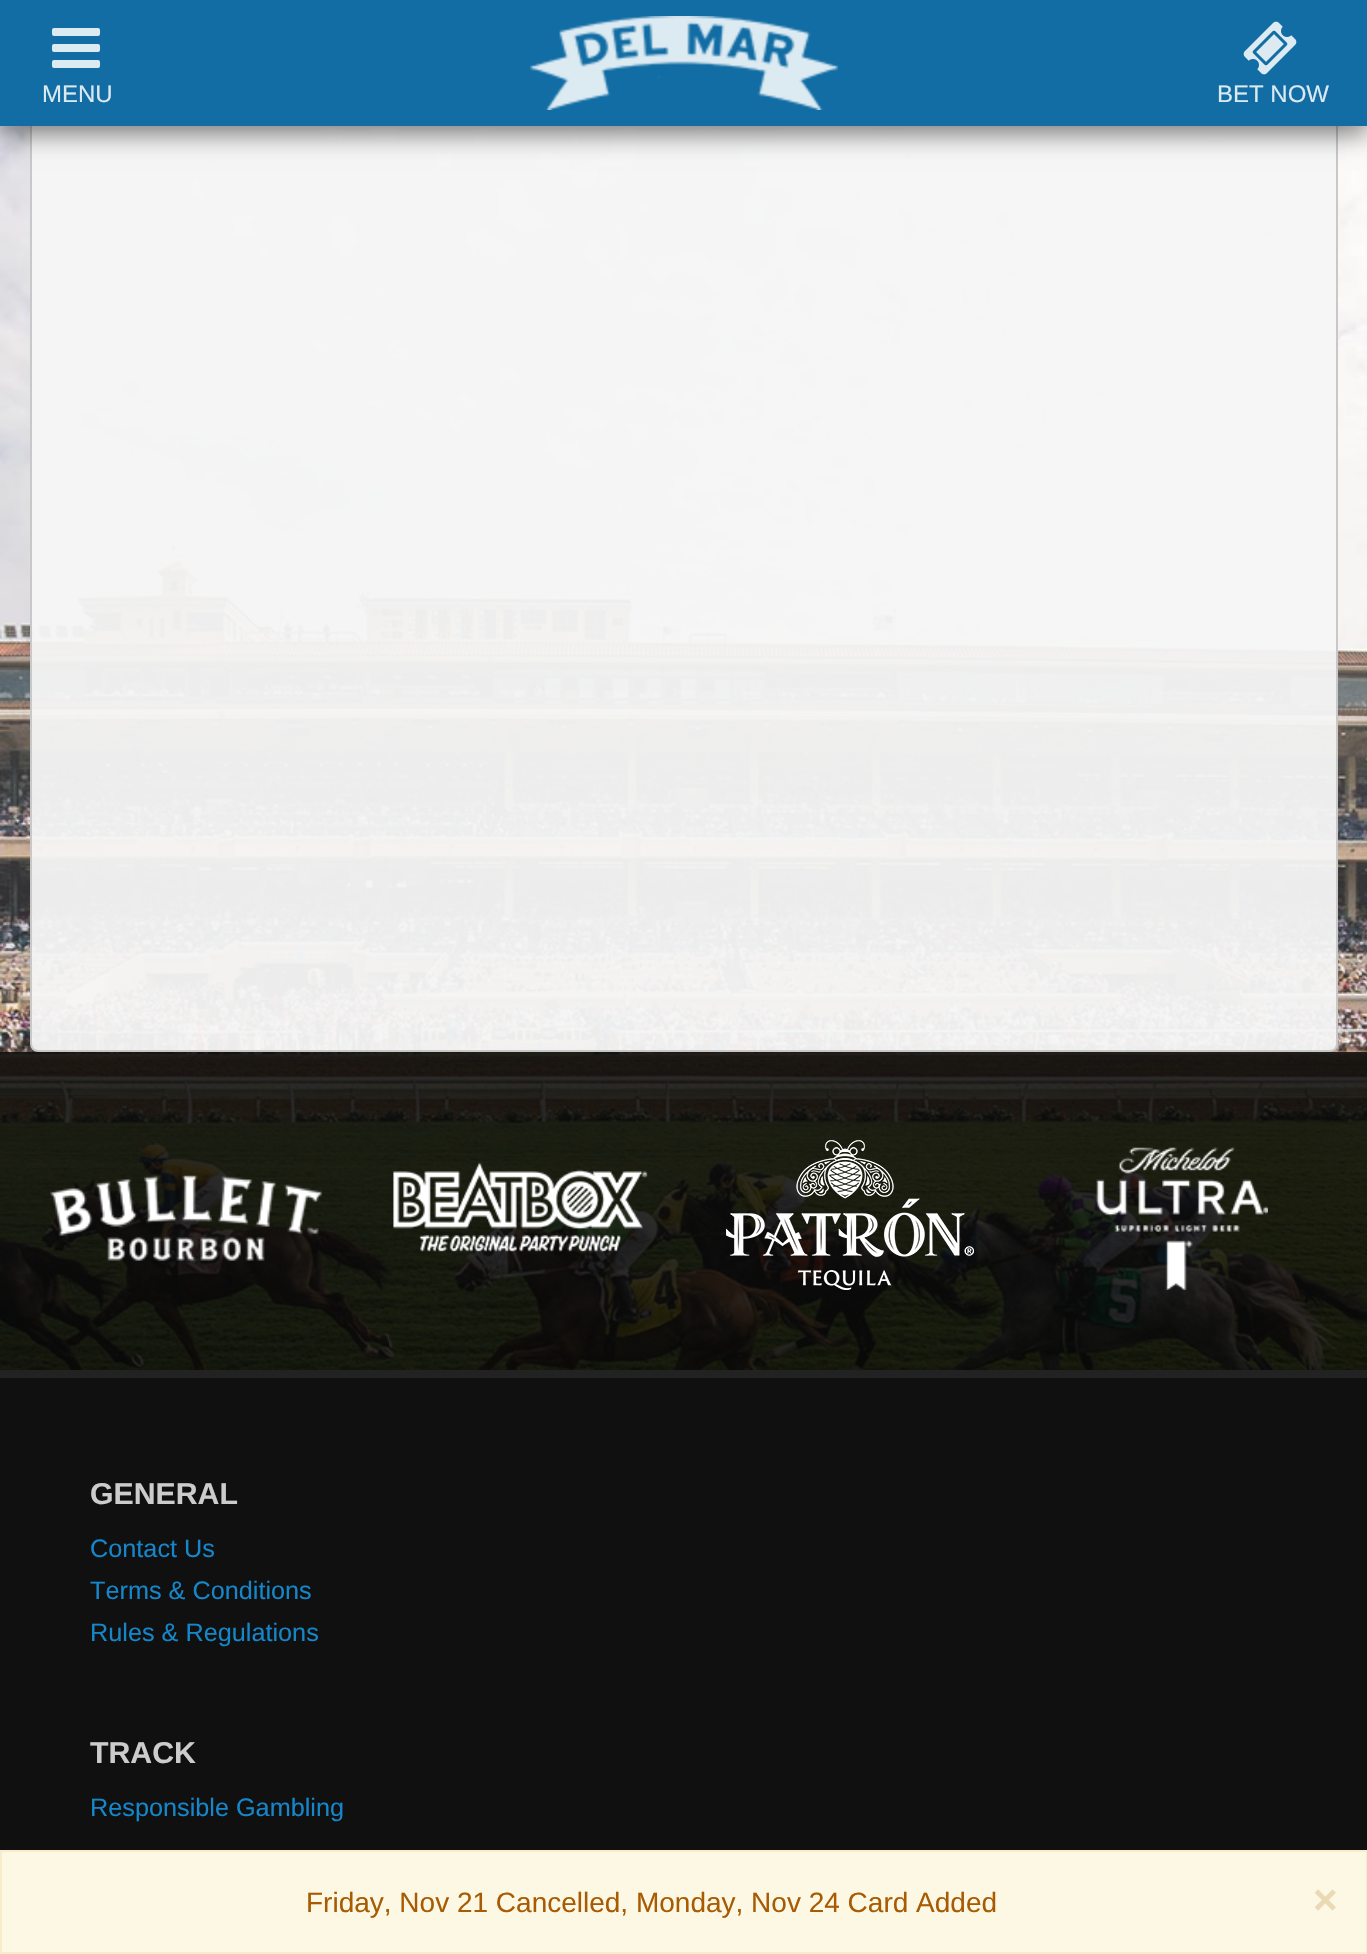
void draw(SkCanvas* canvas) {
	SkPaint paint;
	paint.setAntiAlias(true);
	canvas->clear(0xffffffff);
	canvas->drawImageRect(SkImages::DeferredFromEncodedData(SkData::MakeFromFileName("img1.png")), SkRect::MakeXYWH(0, 126, 1367, 1244), SkSamplingOptions());
	paint.setColor(0xf2f5f5f5);
	canvas->drawRoundRect(SkRect::MakeXYWH(31, -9, 1306, 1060), 7, 7, paint);
	paint.setStroke(true);
	paint.setStrokeWidth(2);
	paint.setColor(0xffc8c8c8);
	canvas->drawRoundRect(SkRect::MakeXYWH(31, -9, 1306, 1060), 7, 7, paint);
	paint.setStroke(false);
	paint.setColor(0x80000000);
	paint.setMaskFilter(SkMaskFilter::MakeBlur(kNormal_SkBlurStyle, 12));
	canvas->drawRect(SkRect::MakeXYWH(0, 8, 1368, 126), paint);
	paint.setMaskFilter(nullptr);
	paint.setColor(0xff116da4);
	canvas->drawRect(SkRect::MakeXYWH(0, 0, 1367, 126), paint);
	canvas->drawImageRect(SkImages::DeferredFromEncodedData(SkData::MakeFromFileName("img2.png")), SkRect::MakeXYWH(52, 28, 48, 40), SkSamplingOptions());
	SkFont f1(fontMgr->matchFamilyStyle("Liberation Sans", SkFontStyle::Normal()), 24);
	f1.setSubpixel(true);
	paint.setColor(0xffdbe9f1);
	canvas->drawString("MENU", 42, 102, f1, paint);
	canvas->drawImageRect(SkImages::DeferredFromEncodedData(SkData::MakeFromFileName("img3.png")), SkRect::MakeXYWH(530, 16, 308, 94), SkSamplingOptions());
	canvas->drawImageRect(SkImages::DeferredFromEncodedData(SkData::MakeFromFileName("img4.png")), SkRect::MakeXYWH(1243, 21, 54, 54), SkSamplingOptions());
	canvas->drawString("BET NOW", 1217, 102, f1, paint);
	paint.setColor(0xd9060606);
	canvas->drawRect(SkRect::MakeXYWH(0, 1052, 1367, 318), paint);
	paint.setColor(0x4d191919);
	canvas->drawRect(SkRect::MakeXYWH(0, 1052, 1367, 8), paint);
	canvas->drawImageRect(SkImages::DeferredFromEncodedData(SkData::MakeFromFileName("img5.png")), SkRect::MakeXYWH(50, 1175, 272, 86), SkSamplingOptions());
	canvas->drawImageRect(SkImages::DeferredFromEncodedData(SkData::MakeFromFileName("img6.png")), SkRect::MakeXYWH(393, 1162, 255, 90), SkSamplingOptions());
	canvas->drawImageRect(SkImages::DeferredFromEncodedData(SkData::MakeFromFileName("img7.png")), SkRect::MakeXYWH(726, 1140, 248, 150), SkSamplingOptions());
	canvas->drawImageRect(SkImages::DeferredFromEncodedData(SkData::MakeFromFileName("img8.png")), SkRect::MakeXYWH(1096, 1147, 172, 143), SkSamplingOptions());
	paint.setColor(0xff101010);
	canvas->drawRect(SkRect::MakeXYWH(0, 1378, 1367, 472), paint);
	paint.setColor(0xff222222);
	canvas->drawRect(SkRect::MakeXYWH(0, 1370, 1367, 8), paint);
	SkFont f2(fontMgr->matchFamilyStyle("Liberation Sans", SkFontStyle::Bold()), 30.25);
	f2.setSubpixel(true);
	paint.setColor(0xffcccccc);
	canvas->drawString("GENERAL", 90, 1504, f2, paint);
	SkFont f3(fontMgr->matchFamilyStyle("Liberation Sans", SkFontStyle::Normal()), 25.25);
	f3.setSubpixel(true);
	paint.setColor(0xff1586c9);
	canvas->drawString("Contact Us", 90, 1557, f3, paint);
	canvas->drawString("Terms & Conditions", 90, 1599, f3, paint);
	canvas->drawString("Rules & Regulations", 90, 1641, f3, paint);
	paint.setColor(0xffcccccc);
	canvas->drawString("TRACK", 90, 1763, f2, paint);
	paint.setColor(0xff1586c9);
	canvas->drawString("Responsible Gambling", 90, 1816, f3, paint);
	paint.setColor(0xfffcf8e3);
	canvas->drawRect(SkRect::MakeXYWH(1, 1851, 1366, 102), paint);
	paint.setStroke(true);
	paint.setColor(0xfffaebcc);
	canvas->drawRect(SkRect::MakeXYWH(1, 1851, 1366, 102), paint);
	SkFont f4(fontMgr->matchFamilyStyle("Liberation Sans", SkFontStyle::Normal()), 28);
	f4.setSubpixel(true);
	paint.setStroke(false);
	paint.setColor(0xffa95b03);
	canvas->drawString("Friday, Nov 21 Cancelled, Monday, Nov 24 Card Added", 306, 1912, f4, paint);
	SkFont f5(fontMgr->matchFamilyStyle("Liberation Sans", SkFontStyle::Bold()), 42);
	f5.setSubpixel(true);
	paint.setColor(0xffebd9b6);
	canvas->drawString("×", 1313, 1914, f5, paint);
}
